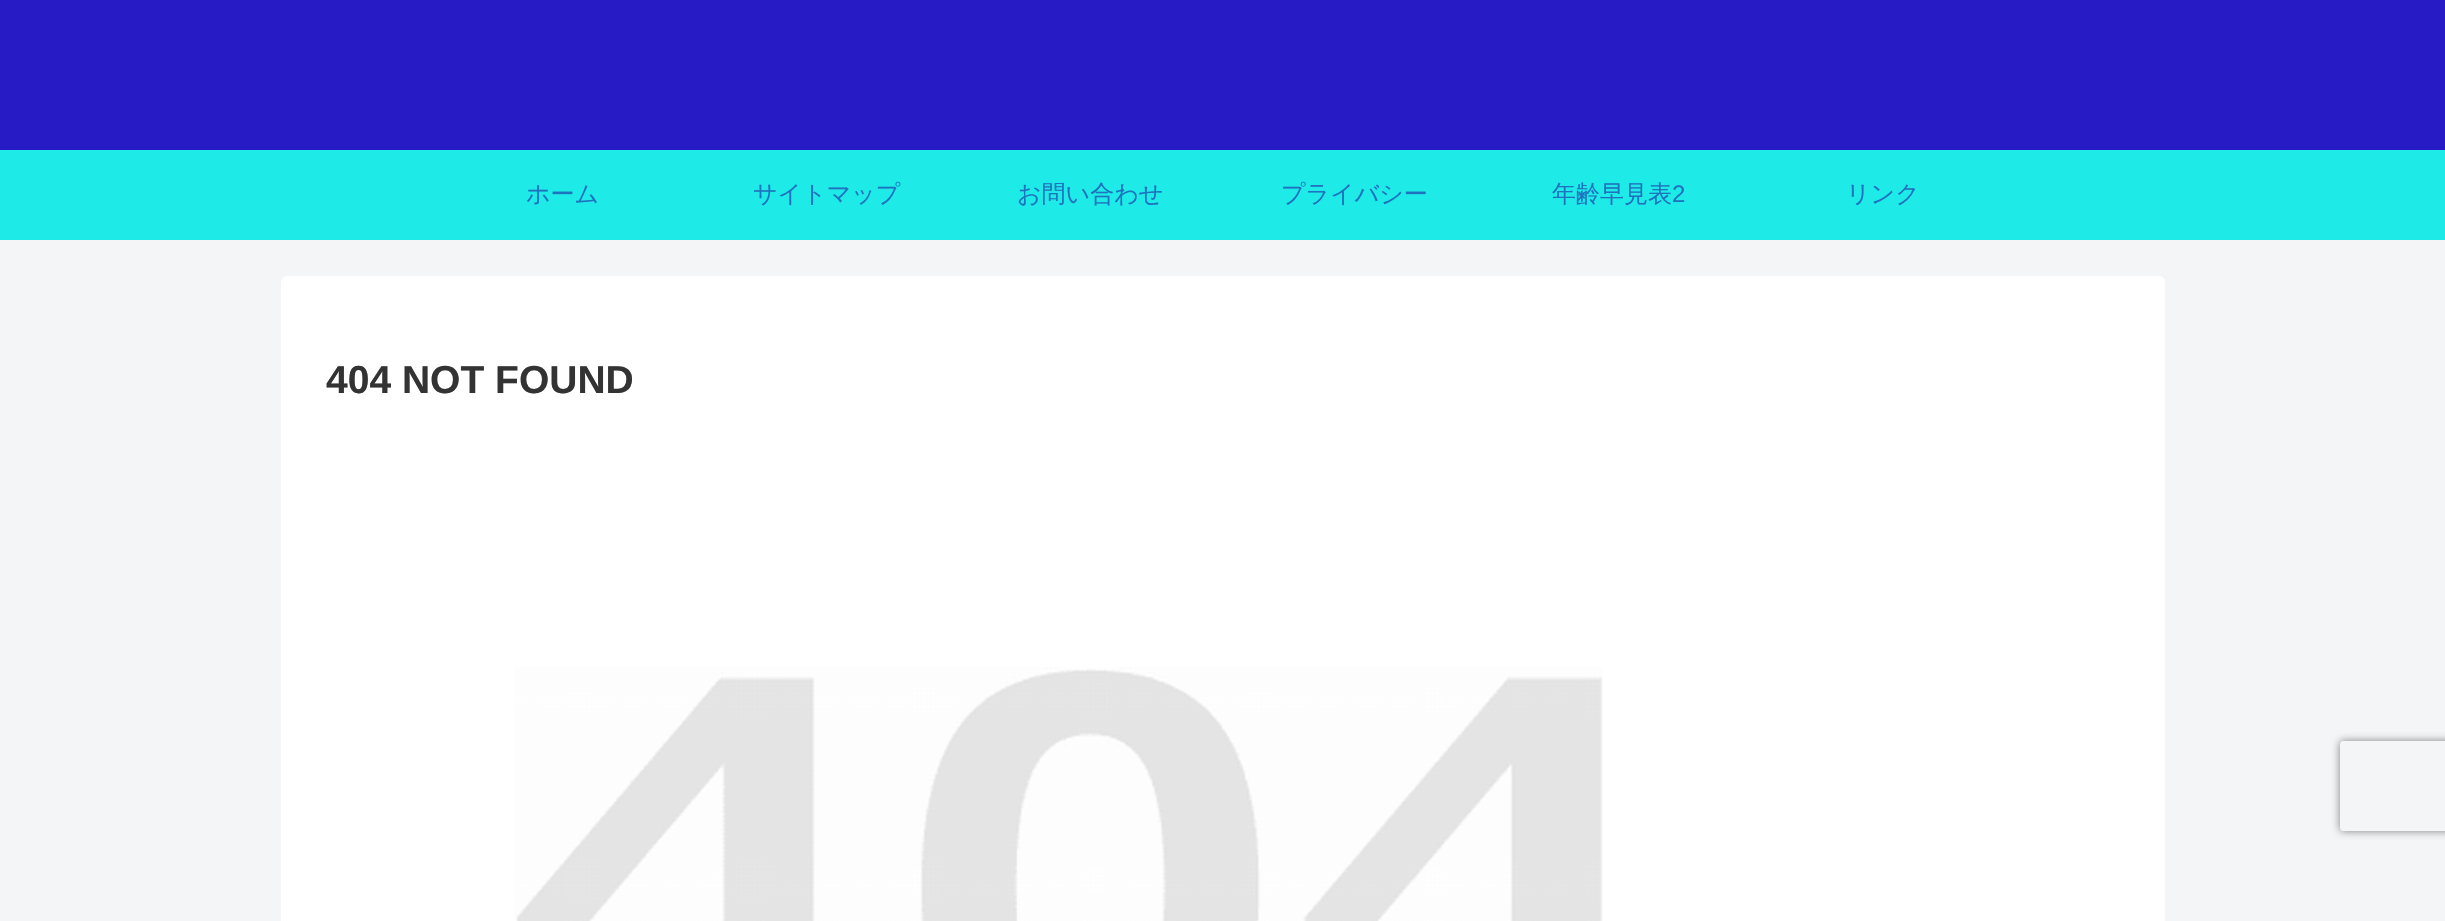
void draw(SkCanvas* canvas) {
	SkPaint paint;
	paint.setAntiAlias(true);
	auto svgPath = [&](const char* data, bool evenOdd = false) {
		SkPath result = *SkParsePath::FromSVGString(data);
		if (evenOdd) result.setFillType(SkPathFillType::kEvenOdd);
		return result;
	};
	canvas->clear(0xfff4f5f7);
	paint.setColor(0xff271bc6);
	canvas->drawRect(SkRect::MakeXYWH(0, 0, 2445, 150), paint);
	paint.setColor(0xff1eeae7);
	canvas->drawRect(SkRect::MakeXYWH(0, 150, 2445, 90), paint);
	SkFont f1(fontMgr->matchFamilyStyle("WenQuanYi Zen Hei", SkFontStyle(500, SkFontStyle::kNormal_Width, SkFontStyle::kUpright_Slant)), 24);
	f1.setSubpixel(true);
	paint.setColor(0xff1e73be);
	canvas->drawString("ホーム", 526, 202, f1, paint);
	canvas->drawString("サイトマップ", 753, 202, f1, paint);
	canvas->drawString("お問い合わせ", 1017, 202, f1, paint);
	canvas->drawString("プライバシー", 1281, 202, f1, paint);
	canvas->drawString("年齢早見表", 1552, 202, f1, paint);
	SkFont f2(fontMgr->matchFamilyStyle("Liberation Sans", SkFontStyle::Normal()), 24);
	f2.setSubpixel(true);
	canvas->drawString("2", 1672, 202, f2, paint);
	canvas->drawString("リンク", 1846, 202, f1, paint);
	paint.setColor(0xffffffff);
	canvas->drawRoundRect(SkRect::MakeXYWH(281, 276, 1884, 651), 6, 6, paint);
	SkFont f3(fontMgr->matchFamilyStyle("Liberation Sans", SkFontStyle::Bold()), 39);
	f3.setSubpixel(true);
	paint.setColor(0xff333333);
	canvas->drawString("404 NOT FOUND", 326, 393, f3, paint);
	canvas->drawImageRect(SkImages::DeferredFromEncodedData(SkData::MakeFromFileName("img1.png")), SkRect::MakeXYWH(515, 667, 1088, 254), SkSamplingOptions());
	canvas->save();
	canvas->clipPath(svgPath("M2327 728H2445V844H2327ZM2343 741H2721C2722.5 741 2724 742.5 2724 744V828C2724 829.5 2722.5 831 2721 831H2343C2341.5 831 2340 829.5 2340 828V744C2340 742.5 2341.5 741 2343 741Z", true), true);
	paint.setColor(0xff808080);
	paint.setMaskFilter(SkMaskFilter::MakeBlur(kNormal_SkBlurStyle, 4));
	canvas->drawRoundRect(SkRect::MakeXYWH(2340, 741, 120, 90), 3, 3, paint);
	paint.setMaskFilter(nullptr);
	canvas->restore();
}
